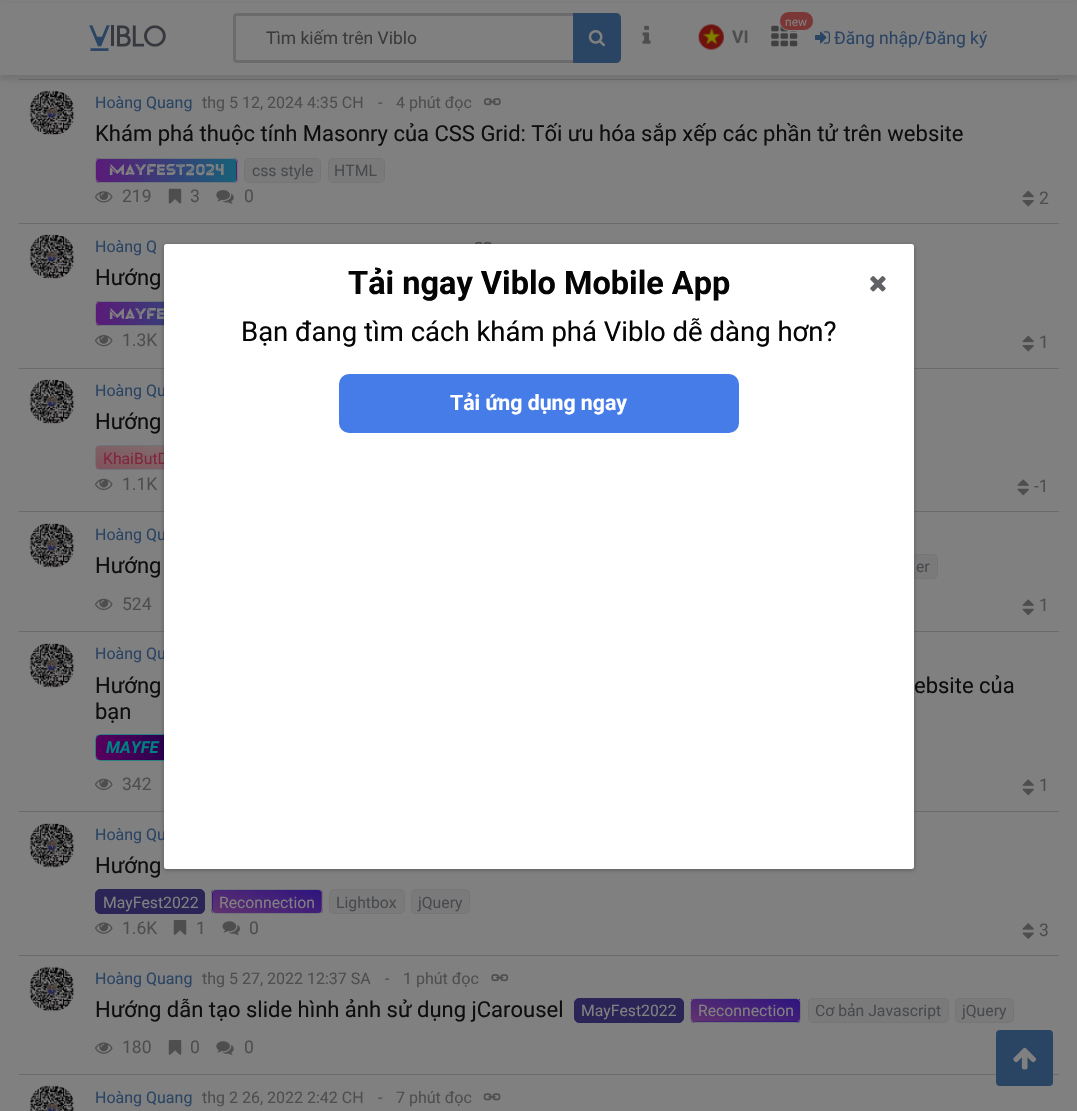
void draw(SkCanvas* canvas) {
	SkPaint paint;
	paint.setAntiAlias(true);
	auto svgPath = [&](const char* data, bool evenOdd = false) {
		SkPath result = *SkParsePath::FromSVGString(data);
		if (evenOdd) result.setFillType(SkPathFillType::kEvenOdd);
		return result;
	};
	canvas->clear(0xff808080);
	paint.setColor(0xff6b6b6c);
	canvas->drawRect(SkRect::MakeXYWH(19, 79, 1040, 1), paint);
	paint.setColor(0x1a000000);
	paint.setMaskFilter(SkMaskFilter::MakeBlur(kNormal_SkBlurStyle, 2.5));
	canvas->drawRect(SkRect::MakeXYWH(0, 5, 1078, 75), paint);
	paint.setMaskFilter(nullptr);
	paint.setColor(0xff808080);
	canvas->drawRect(SkRect::MakeXYWH(0, 3, 1077, 72), paint);
	canvas->drawImageRect(SkImages::DeferredFromEncodedData(SkData::MakeFromFileName("img1.png")), SkRect::MakeXYWH(89, 25, 77, 26), SkSamplingOptions());
	paint.setStroke(true);
	paint.setStrokeWidth(3);
	paint.setColor(0xff6b6b6c);
	canvas->drawRoundRect(SkRect::MakeXYWH(234.5, 14.5, 385, 47), 2.5, 2.5, paint);
	SkFont f1(fontMgr->matchFamilyStyle("Roboto", SkFontStyle::Normal()), 17.5);
	f1.setSubpixel(true);
	paint.setStroke(false);
	paint.setColor(0xff3b3b3b);
	canvas->drawString("Tìm kiếm trên Viblo", 266, 44, f1, paint);
	paint.setColor(0xff2a4464);
	canvas->drawPath(svgPath("M573.5 13.5H616C618.5 13.5 620.5 15.5 620.5 18V58C620.5 60.5 618.5 62.5 616 62.5H573.5Z"), paint);
	paint.setStroke(true);
	paint.setStrokeWidth(1);
	canvas->drawPath(svgPath("M573.5 13.5H616C618.5 13.5 620.5 15.5 620.5 18V58C620.5 60.5 618.5 62.5 616 62.5H573.5Z"), paint);
	canvas->drawImageRect(SkImages::DeferredFromEncodedData(SkData::MakeFromFileName("img2.png")), SkRect::MakeXYWH(588, 30, 17, 17), SkSamplingOptions());
	canvas->drawImageRect(SkImages::DeferredFromEncodedData(SkData::MakeFromFileName("img3.png")), SkRect::MakeXYWH(642, 25, 9, 19), SkSamplingOptions());
	canvas->drawImageRect(SkImages::DeferredFromEncodedData(SkData::MakeFromFileName("img4.png")), SkRect::MakeXYWH(771, 25, 27, 22), SkSamplingOptions());
	paint.setStroke(false);
	paint.setColor(0xff7b3636);
	canvas->drawRoundRect(SkRect::MakeXYWH(779.5, 11.5, 34, 19), 9.5, 9.5, paint);
	paint.setStroke(true);
	paint.setColor(0xff808080);
	canvas->drawRoundRect(SkRect::MakeXYWH(779.5, 11.5, 34, 19), 9.5, 9.5, paint);
	SkFont f2(fontMgr->matchFamilyStyle("Roboto", SkFontStyle::Normal()), 12);
	f2.setSubpixel(true);
	paint.setStroke(false);
	canvas->drawString("new", 785, 26, f2, paint);
	canvas->drawImageRect(SkImages::DeferredFromEncodedData(SkData::MakeFromFileName("img5.png")), SkRect::MakeXYWH(698, 24, 26, 26), SkSamplingOptions());
	SkFont f3(fontMgr->matchFamilyStyle("Roboto", SkFontStyle::Bold()), 17.5);
	f3.setSubpixel(true);
	paint.setColor(0xff4e4e4e);
	canvas->drawString("VI", 732, 43, f3, paint);
	canvas->drawImageRect(SkImages::DeferredFromEncodedData(SkData::MakeFromFileName("img6.png")), SkRect::MakeXYWH(815, 31, 15, 13), SkSamplingOptions());
	paint.setColor(0xff2a4464);
	canvas->drawString("Đăng nhập/Đăng ký", 834, 44, f1, paint);
	paint.setColor(0xff6b6b6c);
	canvas->drawRect(SkRect::MakeXYWH(19, 223, 1040, 1), paint);
	canvas->drawImageRect(SkImages::DeferredFromEncodedData(SkData::MakeFromFileName("img7.png")), SkRect::MakeXYWH(29, 90, 46, 45), SkSamplingOptions());
	SkFont f4(fontMgr->matchFamilyStyle("Roboto", SkFontStyle::Normal()), 16);
	f4.setSubpixel(true);
	paint.setColor(0xff2a4464);
	canvas->drawString("Hoàng Quang", 95, 108, f4, paint);
	paint.setColor(0xff4e4e4e);
	canvas->drawString("thg 5 12, 2024 4:35 CH", 202, 108, f4, paint);
	canvas->drawString("-", 378, 108, f4, paint);
	canvas->drawString("4 phút đọc", 396, 108, f4, paint);
	canvas->drawImageRect(SkImages::DeferredFromEncodedData(SkData::MakeFromFileName("img8.png")), SkRect::MakeXYWH(484, 98, 17, 8), SkSamplingOptions());
	SkFont f5(fontMgr->matchFamilyStyle("Roboto", SkFontStyle::Normal()), 22);
	f5.setSubpixel(true);
	paint.setColor(0xff0e0e0e);
	canvas->drawString("Khám phá thuộc tính Masonry của CSS Grid: Tối ưu hóa sắp xếp các phần tử trên website", 95, 141, f5, paint);
	canvas->save();
	canvas->clipPath(svgPath("M100 158H233C236 158 238 160 238 163V178C238 181 236 183 233 183H100C97 183 95 181 95 178V163C95 160 97 158 100 158Z"), true);
	{
		const SkColor colors[] = {0xff5a1b78, 0xff176178};
		const float stops[] = {0, 1};
		const SkPoint ends[] = {{96, 170}, {236, 170}};
		paint.setShader(SkGradientShader::MakeLinear(ends, colors, stops, 2, SkTileMode::kClamp));
		paint.setAlpha(255);
	}
	canvas->drawRect(SkRect::MakeXYWH(96, 158, 140, 25), paint);
	{
		const SkColor colors[] = {0xff5a1b78, 0xff176178};
		const float stops[] = {0, 1};
		const SkPoint ends[] = {{236, 170}, {376, 170}};
		paint.setShader(SkGradientShader::MakeLinear(ends, colors, stops, 2, SkTileMode::kClamp));
		paint.setAlpha(255);
	}
	canvas->drawRect(SkRect::MakeXYWH(236, 158, 2, 25), paint);
	canvas->restore();
	paint.setStroke(true);
	paint.setShader(nullptr);
	paint.setColor(0xff6f747a);
	canvas->drawRoundRect(SkRect::MakeXYWH(95.5, 158.5, 142, 24), 4.5, 4.5, paint);
	SkFont f6(fontMgr->matchFamilyStyle("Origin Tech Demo", SkFontStyle::Normal()), 15.75);
	f6.setSubpixel(true);
	paint.setStroke(false);
	paint.setColor(0xff808080);
	canvas->drawString("MayFest2024", 109, 175, f6, paint);
	paint.setColor(0xff7a7a7b);
	canvas->drawRoundRect(SkRect::MakeXYWH(244.5, 158.5, 76, 24), 4.5, 4.5, paint);
	paint.setStroke(true);
	paint.setColor(0xff757576);
	canvas->drawRoundRect(SkRect::MakeXYWH(244.5, 158.5, 76, 24), 4.5, 4.5, paint);
	SkFont f7(fontMgr->matchFamilyStyle("Roboto", SkFontStyle::Normal()), 15.75);
	f7.setSubpixel(true);
	paint.setStroke(false);
	paint.setColor(0xff484a4d);
	canvas->drawString("css style", 252, 176, f7, paint);
	paint.setColor(0xff7a7a7b);
	canvas->drawRoundRect(SkRect::MakeXYWH(328.5, 158.5, 56, 24), 4.5, 4.5, paint);
	paint.setStroke(true);
	paint.setColor(0xff757576);
	canvas->drawRoundRect(SkRect::MakeXYWH(328.5, 158.5, 56, 24), 4.5, 4.5, paint);
	paint.setStroke(false);
	paint.setColor(0xff484a4d);
	canvas->drawString("HTML", 334, 176, f7, paint);
	canvas->drawImageRect(SkImages::DeferredFromEncodedData(SkData::MakeFromFileName("img9.png")), SkRect::MakeXYWH(95, 191, 18, 12), SkSamplingOptions());
	paint.setColor(0xff4e4e4e);
	canvas->drawString("219", 122, 202, f1, paint);
	canvas->drawImageRect(SkImages::DeferredFromEncodedData(SkData::MakeFromFileName("img10.png")), SkRect::MakeXYWH(168, 188, 14, 16), SkSamplingOptions());
	canvas->drawString("3", 190, 202, f1, paint);
	canvas->drawImageRect(SkImages::DeferredFromEncodedData(SkData::MakeFromFileName("img11.png")), SkRect::MakeXYWH(216, 190, 18, 14), SkSamplingOptions());
	canvas->drawString("0", 244, 202, f1, paint);
	canvas->drawImageRect(SkImages::DeferredFromEncodedData(SkData::MakeFromFileName("img12.png")), SkRect::MakeXYWH(1022, 190, 12, 8), SkSamplingOptions());
	canvas->drawImageRect(SkImages::DeferredFromEncodedData(SkData::MakeFromFileName("img13.png")), SkRect::MakeXYWH(1022, 200, 12, 7), SkSamplingOptions());
	canvas->drawString("2", 1039, 204, f1, paint);
	paint.setColor(0xff6b6b6c);
	canvas->drawRect(SkRect::MakeXYWH(19, 368, 1040, 1), paint);
	canvas->drawImageRect(SkImages::DeferredFromEncodedData(SkData::MakeFromFileName("img14.png")), SkRect::MakeXYWH(29, 234, 46, 45), SkSamplingOptions());
	paint.setColor(0xff2a4464);
	canvas->drawString("Hoàng Q", 95, 252, f4, paint);
	canvas->drawImageRect(SkImages::DeferredFromEncodedData(SkData::MakeFromFileName("img15.png")), SkRect::MakeXYWH(475, 241, 17, 3), SkSamplingOptions());
	paint.setColor(0xff0e0e0e);
	canvas->drawString("Hướng", 95, 285, f5, paint);
	canvas->save();
	canvas->clipPath(svgPath("M100 301H233C236 301 238 303 238 306V321C238 324 236 326 233 326H100C97 326 95 324 95 321V306C95 303 97 301 100 301Z"), true);
	{
		const SkColor colors[] = {0xff5a1b78, 0xff176178};
		const float stops[] = {0, 1};
		const SkPoint ends[] = {{96, 314}, {236, 314}};
		paint.setShader(SkGradientShader::MakeLinear(ends, colors, stops, 2, SkTileMode::kClamp));
		paint.setAlpha(255);
	}
	canvas->drawRect(SkRect::MakeXYWH(96, 301, 68, 25), paint);
	canvas->restore();
	paint.setStroke(true);
	paint.setShader(nullptr);
	paint.setColor(0xff6f747a);
	canvas->drawRoundRect(SkRect::MakeXYWH(95.5, 301.5, 142, 24), 4.5, 4.5, paint);
	paint.setStroke(false);
	paint.setColor(0xff808080);
	canvas->drawString("MayFe", 109, 319, f6, paint);
	canvas->drawImageRect(SkImages::DeferredFromEncodedData(SkData::MakeFromFileName("img16.png")), SkRect::MakeXYWH(95, 335, 18, 12), SkSamplingOptions());
	paint.setColor(0xff4e4e4e);
	canvas->drawString("1.3K", 122, 346, f1, paint);
	canvas->drawImageRect(SkImages::DeferredFromEncodedData(SkData::MakeFromFileName("img12.png")), SkRect::MakeXYWH(1022, 335, 12, 8), SkSamplingOptions());
	canvas->drawImageRect(SkImages::DeferredFromEncodedData(SkData::MakeFromFileName("img13.png")), SkRect::MakeXYWH(1022, 345, 12, 7), SkSamplingOptions());
	canvas->drawString("1", 1039, 348, f1, paint);
	paint.setColor(0xff6b6b6c);
	canvas->drawRect(SkRect::MakeXYWH(19, 511, 1040, 1), paint);
	canvas->drawImageRect(SkImages::DeferredFromEncodedData(SkData::MakeFromFileName("img14.png")), SkRect::MakeXYWH(29, 379, 46, 45), SkSamplingOptions());
	paint.setColor(0xff2a4464);
	canvas->drawString("Hoàng Qu", 95, 396, f4, paint);
	paint.setColor(0xff0e0e0e);
	canvas->drawString("Hướng", 95, 429, f5, paint);
	{
		const SkColor colors[] = {0xff7f525c, 0xff807a74};
		const float stops[] = {0, 1};
		const SkPoint ends[] = {{150, 488}, {172, 427}};
		paint.setShader(SkGradientShader::MakeLinear(ends, colors, stops, 2, SkTileMode::kClamp));
		paint.setAlpha(255);
	}
	canvas->drawRect(SkRect::MakeXYWH(96, 446, 68, 23), paint);
	paint.setStroke(true);
	paint.setShader(nullptr);
	paint.setColor(0xff6f747a);
	canvas->drawRoundRect(SkRect::MakeXYWH(95.5, 445.5, 132, 24), 4.5, 4.5, paint);
	paint.setStroke(false);
	paint.setColor(0xff7f273a);
	canvas->drawString("KhaiButD", 103, 464, f7, paint);
	canvas->drawImageRect(SkImages::DeferredFromEncodedData(SkData::MakeFromFileName("img17.png")), SkRect::MakeXYWH(95, 478, 18, 12), SkSamplingOptions());
	paint.setColor(0xff4e4e4e);
	canvas->drawString("1.1K", 122, 490, f1, paint);
	canvas->drawImageRect(SkImages::DeferredFromEncodedData(SkData::MakeFromFileName("img18.png")), SkRect::MakeXYWH(1017, 479, 12, 7), SkSamplingOptions());
	canvas->drawImageRect(SkImages::DeferredFromEncodedData(SkData::MakeFromFileName("img19.png")), SkRect::MakeXYWH(1017, 488, 12, 8), SkSamplingOptions());
	canvas->drawString("-1", 1034, 492, f1, paint);
	paint.setColor(0xff6b6b6c);
	canvas->drawRect(SkRect::MakeXYWH(19, 631, 1040, 1), paint);
	canvas->drawImageRect(SkImages::DeferredFromEncodedData(SkData::MakeFromFileName("img20.png")), SkRect::MakeXYWH(29, 523, 46, 45), SkSamplingOptions());
	paint.setColor(0xff2a4464);
	canvas->drawString("Hoàng Qu", 95, 540, f4, paint);
	paint.setColor(0xff0e0e0e);
	canvas->drawString("Hướng", 95, 573, f5, paint);
	paint.setColor(0xff7a7a7b);
	canvas->drawRoundRect(SkRect::MakeXYWH(884.5, 554.5, 53, 24), 4.5, 4.5, paint);
	paint.setStroke(true);
	paint.setColor(0xff757576);
	canvas->drawRoundRect(SkRect::MakeXYWH(884.5, 554.5, 53, 24), 4.5, 4.5, paint);
	paint.setStroke(false);
	paint.setColor(0xff484a4d);
	canvas->drawString("er", 916, 572, f7, paint);
	canvas->drawImageRect(SkImages::DeferredFromEncodedData(SkData::MakeFromFileName("img17.png")), SkRect::MakeXYWH(95, 598, 18, 12), SkSamplingOptions());
	paint.setColor(0xff4e4e4e);
	canvas->drawString("524", 122, 610, f1, paint);
	canvas->drawImageRect(SkImages::DeferredFromEncodedData(SkData::MakeFromFileName("img18.png")), SkRect::MakeXYWH(1022, 599, 12, 7), SkSamplingOptions());
	canvas->drawImageRect(SkImages::DeferredFromEncodedData(SkData::MakeFromFileName("img19.png")), SkRect::MakeXYWH(1022, 608, 12, 8), SkSamplingOptions());
	canvas->drawString("1", 1039, 611, f1, paint);
	paint.setColor(0xff6b6b6c);
	canvas->drawRect(SkRect::MakeXYWH(19, 811, 1040, 1), paint);
	canvas->drawImageRect(SkImages::DeferredFromEncodedData(SkData::MakeFromFileName("img21.png")), SkRect::MakeXYWH(29, 643, 46, 45), SkSamplingOptions());
	paint.setColor(0xff2a4464);
	canvas->drawString("Hoàng Qu", 95, 659, f4, paint);
	paint.setColor(0xff0e0e0e);
	canvas->drawString("Hướng", 95, 693, f5, paint);
	canvas->drawString("ebsite của", 914, 693, f5, paint);
	canvas->drawString("bạn", 95, 719, f5, paint);
	canvas->save();
	canvas->clipPath(svgPath("M101 734H179V761H101C97.5 761 95 758.5 95 755V740C95 736.5 97.5 734 101 734Z"), true);
	{
		const SkColor colors[] = {0xff20004a, 0xff5e0060};
		const float stops[] = {0.01, 1};
		const SkPoint ends[] = {{180, 742}, {88, 754}};
		paint.setShader(SkGradientShader::MakeLinear(ends, colors, stops, 2, SkTileMode::kClamp));
		paint.setAlpha(255);
	}
	canvas->drawRect(SkRect::MakeXYWH(96, 735, 68, 25), paint);
	canvas->restore();
	paint.setShader(nullptr);
	paint.setColor(0xff2b8080);
	canvas->drawPath(svgPath("M101 734H179V761H101C98 761 95 758 95 755V740C95 737 98 734 101 734ZM101 735H179V760H101C98 760 96 758 96 755V740C96 737 98 735 101 735Z", true), paint);
	SkFont f8(fontMgr->matchFamilyStyle("Roboto", SkFontStyle::BoldItalic()), 16.5);
	f8.setSubpixel(true);
	paint.setColor(0xff008080);
	canvas->drawString("MAYFE", 106, 753, f8, paint);
	canvas->drawImageRect(SkImages::DeferredFromEncodedData(SkData::MakeFromFileName("img17.png")), SkRect::MakeXYWH(95, 778, 18, 12), SkSamplingOptions());
	paint.setColor(0xff4e4e4e);
	canvas->drawString("342", 122, 790, f1, paint);
	canvas->drawImageRect(SkImages::DeferredFromEncodedData(SkData::MakeFromFileName("img18.png")), SkRect::MakeXYWH(1022, 779, 12, 7), SkSamplingOptions());
	canvas->drawImageRect(SkImages::DeferredFromEncodedData(SkData::MakeFromFileName("img19.png")), SkRect::MakeXYWH(1022, 788, 12, 8), SkSamplingOptions());
	canvas->drawString("1", 1039, 791, f1, paint);
	paint.setColor(0xff6b6b6c);
	canvas->drawRect(SkRect::MakeXYWH(19, 955, 1040, 1), paint);
	canvas->drawImageRect(SkImages::DeferredFromEncodedData(SkData::MakeFromFileName("img20.png")), SkRect::MakeXYWH(29, 823, 46, 45), SkSamplingOptions());
	paint.setColor(0xff2a4464);
	canvas->drawString("Hoàng Qu", 95, 840, f4, paint);
	paint.setColor(0xff0e0e0e);
	canvas->drawString("Hướng", 95, 873, f5, paint);
	paint.setColor(0xff2b2457);
	canvas->drawRoundRect(SkRect::MakeXYWH(95.5, 889.5, 109, 24), 4.5, 4.5, paint);
	paint.setStroke(true);
	canvas->drawRoundRect(SkRect::MakeXYWH(95.5, 889.5, 109, 24), 4.5, 4.5, paint);
	paint.setStroke(false);
	paint.setColor(0xff808080);
	canvas->drawString("MayFest2022", 103, 908, f7, paint);
	canvas->save();
	canvas->clipPath(svgPath("M216 889H318C321 889 323 891 323 894V909C323 912 321 914 318 914H216C213 914 211 912 211 909V894C211 891 213 889 216 889Z"), true);
	{
		const SkColor colors[] = {0xff61336f, 0xff2e147f};
		const float stops[] = {0, 1};
		const SkPoint ends[] = {{148, 929}, {168, 874}};
		paint.setShader(SkGradientShader::MakeLinear(ends, colors, stops, 2, SkTileMode::kClamp));
		paint.setAlpha(255);
	}
	canvas->drawRect(SkRect::MakeXYWH(211, 890, 2, 23), paint);
	canvas->restore();
	{
		const SkColor colors[] = {0xff61336f, 0xff2e147f};
		const float stops[] = {0, 1};
		const SkPoint ends[] = {{257, 929}, {277, 874}};
		paint.setShader(SkGradientShader::MakeLinear(ends, colors, stops, 2, SkTileMode::kClamp));
		paint.setAlpha(255);
	}
	canvas->drawRect(SkRect::MakeXYWH(213, 890, 108, 23), paint);
	canvas->save();
	canvas->clipPath(svgPath("M216 889H318C321 889 323 891 323 894V909C323 912 321 914 318 914H216C213 914 211 912 211 909V894C211 891 213 889 216 889Z"), true);
	{
		const SkColor colors[] = {0xff61336f, 0xff2e147f};
		const float stops[] = {0, 1};
		const SkPoint ends[] = {{366, 929}, {386, 874}};
		paint.setShader(SkGradientShader::MakeLinear(ends, colors, stops, 2, SkTileMode::kClamp));
		paint.setAlpha(255);
	}
	canvas->drawRect(SkRect::MakeXYWH(321, 890, 2, 23), paint);
	canvas->restore();
	paint.setStroke(true);
	paint.setShader(nullptr);
	paint.setColor(0xff6f747a);
	canvas->drawRoundRect(SkRect::MakeXYWH(211.5, 889.5, 111, 24), 4.5, 4.5, paint);
	paint.setStroke(false);
	paint.setColor(0xff808080);
	canvas->drawString("Reconnection", 219, 908, f7, paint);
	paint.setColor(0xff7a7a7b);
	canvas->drawRoundRect(SkRect::MakeXYWH(329.5, 889.5, 75, 24), 4.5, 4.5, paint);
	paint.setStroke(true);
	paint.setColor(0xff757576);
	canvas->drawRoundRect(SkRect::MakeXYWH(329.5, 889.5, 75, 24), 4.5, 4.5, paint);
	paint.setStroke(false);
	paint.setColor(0xff484a4d);
	canvas->drawString("Lightbox", 336, 908, f7, paint);
	paint.setColor(0xff7a7a7b);
	canvas->drawRoundRect(SkRect::MakeXYWH(411.5, 889.5, 58, 24), 4.5, 4.5, paint);
	paint.setStroke(true);
	paint.setColor(0xff757576);
	canvas->drawRoundRect(SkRect::MakeXYWH(411.5, 889.5, 58, 24), 4.5, 4.5, paint);
	paint.setStroke(false);
	paint.setColor(0xff484a4d);
	canvas->drawString("jQuery", 418, 908, f7, paint);
	canvas->drawImageRect(SkImages::DeferredFromEncodedData(SkData::MakeFromFileName("img22.png")), SkRect::MakeXYWH(95, 922, 18, 12), SkSamplingOptions());
	paint.setColor(0xff4e4e4e);
	canvas->drawString("1.6K", 122, 934, f1, paint);
	canvas->drawImageRect(SkImages::DeferredFromEncodedData(SkData::MakeFromFileName("img23.png")), SkRect::MakeXYWH(173, 920, 14, 15), SkSamplingOptions());
	canvas->drawString("1", 196, 934, f1, paint);
	canvas->drawImageRect(SkImages::DeferredFromEncodedData(SkData::MakeFromFileName("img24.png")), SkRect::MakeXYWH(222, 921, 18, 14), SkSamplingOptions());
	canvas->drawString("0", 249, 934, f1, paint);
	canvas->drawImageRect(SkImages::DeferredFromEncodedData(SkData::MakeFromFileName("img25.png")), SkRect::MakeXYWH(1022, 923, 12, 7), SkSamplingOptions());
	canvas->drawImageRect(SkImages::DeferredFromEncodedData(SkData::MakeFromFileName("img26.png")), SkRect::MakeXYWH(1022, 932, 12, 7), SkSamplingOptions());
	canvas->drawString("3", 1039, 936, f1, paint);
	paint.setColor(0xff6b6b6c);
	canvas->drawRect(SkRect::MakeXYWH(19, 1074, 1040, 1), paint);
	canvas->drawImageRect(SkImages::DeferredFromEncodedData(SkData::MakeFromFileName("img27.png")), SkRect::MakeXYWH(29, 966, 46, 46), SkSamplingOptions());
	paint.setColor(0xff2a4464);
	canvas->drawString("Hoàng Quang", 95, 984, f4, paint);
	paint.setColor(0xff4e4e4e);
	canvas->drawString("thg 5 27, 2022 12:37 SA", 202, 984, f4, paint);
	canvas->drawString("-", 385, 984, f4, paint);
	canvas->drawString("1 phút đọc", 403, 984, f4, paint);
	canvas->drawImageRect(SkImages::DeferredFromEncodedData(SkData::MakeFromFileName("img28.png")), SkRect::MakeXYWH(491, 974, 18, 8), SkSamplingOptions());
	paint.setColor(0xff0e0e0e);
	canvas->drawString("Hướng dẫn tạo slide hình ảnh sử dụng jCarousel", 95, 1017, f5, paint);
	paint.setColor(0xff2b2457);
	canvas->drawRoundRect(SkRect::MakeXYWH(574.5, 998.5, 109, 24), 4.5, 4.5, paint);
	paint.setStroke(true);
	canvas->drawRoundRect(SkRect::MakeXYWH(574.5, 998.5, 109, 24), 4.5, 4.5, paint);
	paint.setStroke(false);
	paint.setColor(0xff808080);
	canvas->drawString("MayFest2022", 581, 1016, f7, paint);
	{
		const SkColor colors[] = {0xff61336f, 0xff2e147f};
		const float stops[] = {0, 1};
		const SkPoint ends[] = {{736, 1037}, {756, 983}};
		paint.setShader(SkGradientShader::MakeLinear(ends, colors, stops, 2, SkTileMode::kClamp));
		paint.setAlpha(255);
	}
	canvas->drawRect(SkRect::MakeXYWH(691, 999, 109, 22), paint);
	canvas->save();
	canvas->clipPath(svgPath("M695 998H796C799 998 801 1000 801 1003V1018C801 1021 799 1023 796 1023H695C692 1023 690 1021 690 1018V1003C690 1000 692 998 695 998Z"), true);
	{
		const SkColor colors[] = {0xff61336f, 0xff2e147f};
		const float stops[] = {0, 1};
		const SkPoint ends[] = {{736, 1060}, {756, 1005}};
		paint.setShader(SkGradientShader::MakeLinear(ends, colors, stops, 2, SkTileMode::kClamp));
		paint.setAlpha(255);
	}
	canvas->drawRect(SkRect::MakeXYWH(691, 1021, 109, 2), paint);
	canvas->restore();
	paint.setStroke(true);
	paint.setShader(nullptr);
	paint.setColor(0xff6f747a);
	canvas->drawRoundRect(SkRect::MakeXYWH(690.5, 998.5, 110, 24), 4.5, 4.5, paint);
	paint.setStroke(false);
	paint.setColor(0xff808080);
	canvas->drawString("Reconnection", 698, 1016, f7, paint);
	paint.setColor(0xff7a7a7b);
	canvas->drawRoundRect(SkRect::MakeXYWH(808.5, 998.5, 140, 24), 4.5, 4.5, paint);
	paint.setStroke(true);
	paint.setColor(0xff757576);
	canvas->drawRoundRect(SkRect::MakeXYWH(808.5, 998.5, 140, 24), 4.5, 4.5, paint);
	paint.setStroke(false);
	paint.setColor(0xff484a4d);
	canvas->drawString("Cơ bản Javascript", 815, 1016, f7, paint);
	paint.setColor(0xff7a7a7b);
	canvas->drawRoundRect(SkRect::MakeXYWH(955.5, 998.5, 58, 24), 4.5, 4.5, paint);
	paint.setStroke(true);
	paint.setColor(0xff757576);
	canvas->drawRoundRect(SkRect::MakeXYWH(955.5, 998.5, 58, 24), 4.5, 4.5, paint);
	paint.setStroke(false);
	paint.setColor(0xff484a4d);
	canvas->drawString("jQuery", 962, 1016, f7, paint);
	canvas->drawImageRect(SkImages::DeferredFromEncodedData(SkData::MakeFromFileName("img22.png")), SkRect::MakeXYWH(95, 1042, 18, 12), SkSamplingOptions());
	paint.setColor(0xff4e4e4e);
	canvas->drawString("180", 122, 1053, f1, paint);
	canvas->drawImageRect(SkImages::DeferredFromEncodedData(SkData::MakeFromFileName("img23.png")), SkRect::MakeXYWH(168, 1040, 14, 15), SkSamplingOptions());
	canvas->drawString("0", 190, 1053, f1, paint);
	canvas->drawImageRect(SkImages::DeferredFromEncodedData(SkData::MakeFromFileName("img29.png")), SkRect::MakeXYWH(216, 1041, 18, 14), SkSamplingOptions());
	canvas->drawString("0", 244, 1053, f1, paint);
	canvas->drawImageRect(SkImages::DeferredFromEncodedData(SkData::MakeFromFileName("img30.png")), SkRect::MakeXYWH(29, 1085, 46, 26), SkSamplingOptions());
	paint.setColor(0xff2a4464);
	canvas->drawString("Hoàng Quang", 95, 1103, f4, paint);
	paint.setColor(0xff4e4e4e);
	canvas->drawString("thg 2 26, 2022 2:42 CH", 202, 1103, f4, paint);
	canvas->drawString("-", 378, 1103, f4, paint);
	canvas->drawString("7 phút đọc", 396, 1103, f4, paint);
	canvas->drawImageRect(SkImages::DeferredFromEncodedData(SkData::MakeFromFileName("img31.png")), SkRect::MakeXYWH(483, 1093, 18, 8), SkSamplingOptions());
	paint.setColor(0x4d000000);
	paint.setMaskFilter(SkMaskFilter::MakeBlur(kNormal_SkBlurStyle, 2));
	canvas->drawRoundRect(SkRect::MakeXYWH(164, 245, 750, 625), 2.5, 2.5, paint);
	paint.setMaskFilter(nullptr);
	paint.setColor(0xffffffff);
	canvas->drawRoundRect(SkRect::MakeXYWH(164, 244, 750, 625), 2.5, 2.5, paint);
	SkFont f9(fontMgr->matchFamilyStyle("Roboto", SkFontStyle::Bold()), 32.5);
	f9.setSubpixel(true);
	paint.setColor(0xff050505);
	canvas->drawString("Tải ngay Viblo Mobile App", 348, 294, f9, paint);
	SkFont f10(fontMgr->matchFamilyStyle("Roboto", SkFontStyle::Normal()), 27.5);
	f10.setSubpixel(true);
	canvas->drawString("Bạn đang tìm cách khám phá Viblo dễ dàng hơn?", 241, 341, f10, paint);
	paint.setColor(0xff457ce8);
	canvas->drawRoundRect(SkRect::MakeXYWH(339, 374, 400, 59), 10, 10, paint);
	SkFont f11(fontMgr->matchFamilyStyle("Roboto", SkFontStyle::Bold()), 21.25);
	f11.setSubpixel(true);
	paint.setColor(0xffffffff);
	canvas->drawString("Tải ứng dụng ngay", 450, 410, f11, paint);
	canvas->drawImageRect(SkImages::DeferredFromEncodedData(SkData::MakeFromFileName("img32.png")), SkRect::MakeXYWH(870, 276, 16, 16), SkSamplingOptions());
	paint.setColor(0xff2a4464);
	canvas->drawRoundRect(SkRect::MakeXYWH(996, 1030, 57, 56), 4, 4, paint);
	canvas->drawImageRect(SkImages::DeferredFromEncodedData(SkData::MakeFromFileName("img33.png")), SkRect::MakeXYWH(1013, 1047, 24, 23), SkSamplingOptions());
}
